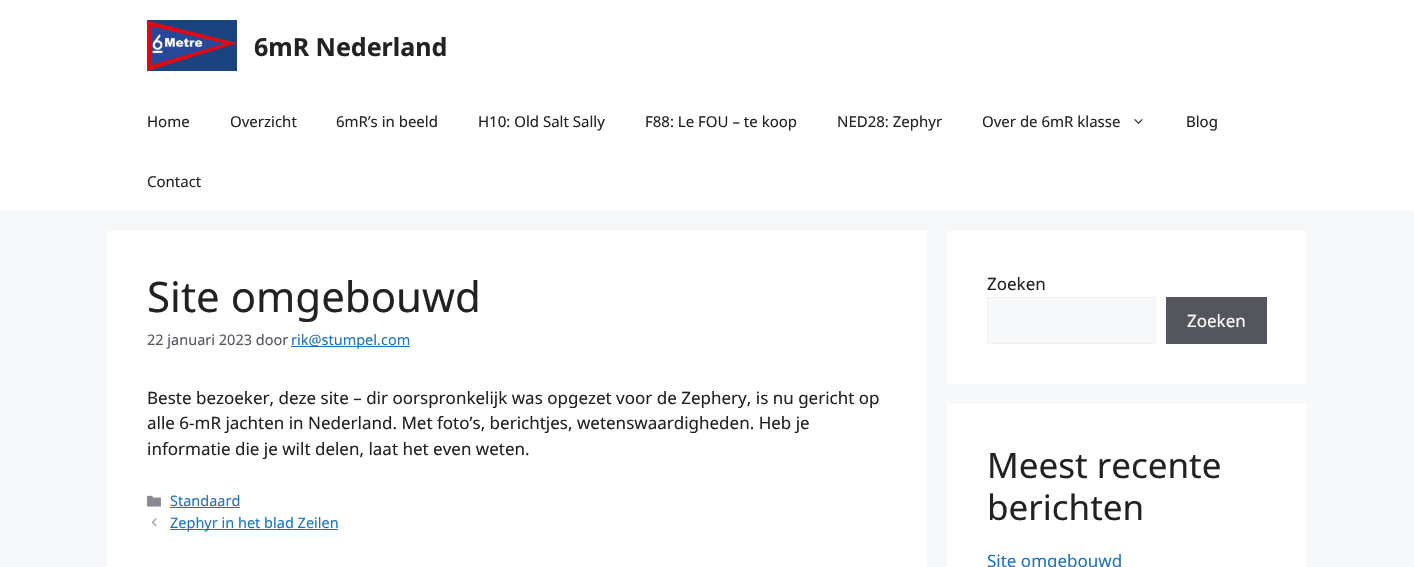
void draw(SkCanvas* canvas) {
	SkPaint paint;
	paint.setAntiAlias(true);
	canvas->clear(0xfff7f8f9);
	paint.setColor(0xffffffff);
	canvas->drawRect(SkRect::MakeXYWH(0, 0, 1414, 211), paint);
	canvas->drawImageRect(SkImages::DeferredFromEncodedData(SkData::MakeFromFileName("img1.png")), SkRect::MakeXYWH(147, 20, 90, 51), SkSamplingOptions());
	SkFont f1(fontMgr->matchFamilyStyle("Noto Sans", SkFontStyle::Bold()), 25);
	f1.setSubpixel(true);
	paint.setColor(0xff222222);
	canvas->drawString("6mR Nederland", 254, 56, f1, paint);
	SkFont f2(fontMgr->matchFamilyStyle("Noto Sans", SkFontStyle::Normal()), 15);
	f2.setSubpixel(true);
	canvas->drawString("Home", 147, 127, f2, paint);
	canvas->drawString("Overzicht", 230, 127, f2, paint);
	canvas->drawString("6mR’s in beeld", 336, 127, f2, paint);
	canvas->drawString("H10: Old Salt Sally", 478, 127, f2, paint);
	canvas->drawString("F88: Le FOU – te koop", 645, 127, f2, paint);
	canvas->drawString("NED28: Zephyr", 837, 127, f2, paint);
	canvas->drawString("Over de 6mR klasse", 982, 127, f2, paint);
	canvas->drawImageRect(SkImages::DeferredFromEncodedData(SkData::MakeFromFileName("img2.png")), SkRect::MakeXYWH(1134, 119, 9, 5), SkSamplingOptions());
	canvas->drawString("Blog", 1186, 127, f2, paint);
	canvas->drawString("Contact", 147, 187, f2, paint);
	paint.setColor(0xffffffff);
	canvas->drawRect(SkRect::MakeXYWH(107, 231, 820, 336), paint);
	SkFont f3(fontMgr->matchFamilyStyle("Noto Sans", SkFontStyle::Normal()), 42);
	f3.setSubpixel(true);
	paint.setColor(0xff222222);
	canvas->drawString("Site omgebouwd", 147, 312, f3, paint);
	SkFont f4(fontMgr->matchFamilyStyle("Noto Sans", SkFontStyle::Normal()), 14.5);
	f4.setSubpixel(true);
	paint.setColor(0xff575760);
	canvas->drawString("22 januari 2023 door", 147, 345, f4, paint);
	paint.setColor(0xff1e73be);
	canvas->drawRect(SkRect::MakeXYWH(291, 346, 119, 1), paint);
	canvas->drawString("rik@stumpel.com", 291, 345, f4, paint);
	SkFont f5(fontMgr->matchFamilyStyle("Noto Sans", SkFontStyle::Normal()), 17);
	f5.setSubpixel(true);
	paint.setColor(0xff222222);
	canvas->drawString("Beste bezoeker, deze site – dir oorspronkelijk was opgezet voor de Zephery, is nu gericht op", 147, 404, f5, paint);
	canvas->drawString("alle 6-mR jachten in Nederland. Met foto’s, berichtjes, wetenswaardigheden. Heb je", 147, 429, f5, paint);
	canvas->drawString("informatie die je wilt delen, laat het even weten.", 147, 455, f5, paint);
	canvas->drawImageRect(SkImages::DeferredFromEncodedData(SkData::MakeFromFileName("img3.png")), SkRect::MakeXYWH(147, 495, 14, 12), SkSamplingOptions());
	paint.setColor(0xff1e73be);
	canvas->drawString("Standaard", 170, 506, f4, paint);
	canvas->drawRect(SkRect::MakeXYWH(170, 507, 70, 1), paint);
	canvas->drawImageRect(SkImages::DeferredFromEncodedData(SkData::MakeFromFileName("img4.png")), SkRect::MakeXYWH(152, 518, 5, 9), SkSamplingOptions());
	canvas->drawRect(SkRect::MakeXYWH(170, 529, 168, 1), paint);
	canvas->drawString("Zephyr in het blad Zeilen", 170, 528, f4, paint);
	paint.setColor(0xffffffff);
	canvas->drawRect(SkRect::MakeXYWH(947, 231, 360, 153), paint);
	paint.setColor(0xff222222);
	canvas->drawString("Zoeken", 987, 290, f5, paint);
	paint.setColor(0xfff7f8f9);
	canvas->drawRect(SkRect::MakeXYWH(987.5, 297.5, 168, 46), paint);
	paint.setStroke(true);
	paint.setStrokeWidth(1);
	paint.setColor(0xfff0f0f0);
	canvas->drawRect(SkRect::MakeXYWH(987.5, 297.5, 168, 46), paint);
	paint.setStroke(false);
	paint.setColor(0xff55555e);
	canvas->drawRect(SkRect::MakeXYWH(1166, 297, 101, 47), paint);
	paint.setColor(0xffffffff);
	canvas->drawString("Zoeken", 1187, 327, f5, paint);
	canvas->drawRect(SkRect::MakeXYWH(947, 404, 360, 163), paint);
	SkFont f6(fontMgr->matchFamilyStyle("Noto Sans", SkFontStyle::Normal()), 35);
	f6.setSubpixel(true);
	paint.setColor(0xff222222);
	canvas->drawString("Meest recente", 987, 478, f6, paint);
	canvas->drawString("berichten", 987, 520, f6, paint);
	paint.setColor(0xff1e73be);
	canvas->drawString("Site omgebouwd", 987, 567, f5, paint);
}
